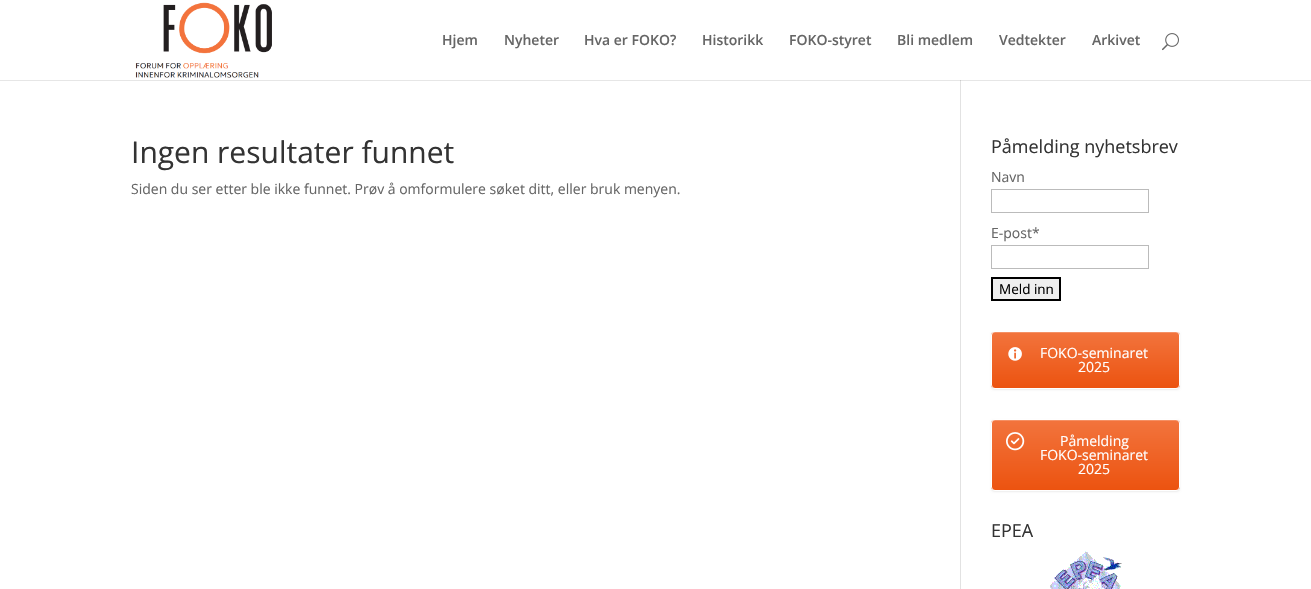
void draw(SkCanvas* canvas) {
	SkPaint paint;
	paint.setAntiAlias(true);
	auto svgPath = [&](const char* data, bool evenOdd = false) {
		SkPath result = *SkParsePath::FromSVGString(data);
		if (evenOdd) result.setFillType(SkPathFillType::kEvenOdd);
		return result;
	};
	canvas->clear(0xffffffff);
	paint.setColor(0xffe6e6e6);
	canvas->drawRect(SkRect::MakeXYWH(0, 80, 1311, 1), paint);
	paint.setColor(0xffe2e2e2);
	canvas->drawRect(SkRect::MakeXYWH(960, 79, 1, 510), paint);
	paint.setColor(0xffffffff);
	canvas->drawRect(SkRect::MakeXYWH(960, 79, 1, 1), paint);
	canvas->drawImageRect(SkImages::DeferredFromEncodedData(SkData::MakeFromFileName("img1.png")), SkRect::MakeXYWH(135, 2, 137, 76), SkSamplingOptions());
	SkFont f1(fontMgr->matchFamilyStyle("Open Sans", SkFontStyle(600, SkFontStyle::kNormal_Width, SkFontStyle::kUpright_Slant)), 14);
	f1.setSubpixel(true);
	paint.setColor(0xff666666);
	canvas->drawString("Hjem", 442, 45, f1, paint);
	canvas->drawString("Nyheter", 504, 45, f1, paint);
	canvas->drawString("Hva er FOKO?", 584, 45, f1, paint);
	canvas->drawString("Historikk", 702, 45, f1, paint);
	canvas->drawString("FOKO-styret", 789, 45, f1, paint);
	canvas->drawString("Bli medlem", 897, 45, f1, paint);
	canvas->drawString("Vedtekter", 999, 45, f1, paint);
	canvas->drawString("Arkivet", 1092, 45, f1, paint);
	canvas->drawImageRect(SkImages::DeferredFromEncodedData(SkData::MakeFromFileName("img2.png")), SkRect::MakeXYWH(1162, 33, 17, 18), SkSamplingOptions());
	paint.setColor(0xffcbcbcb);
	canvas->drawRect(SkRect::MakeXYWH(960, 80, 1, 1), paint);
	SkFont f2(fontMgr->matchFamilyStyle("Open Sans", SkFontStyle::Normal()), 30);
	f2.setSubpixel(true);
	paint.setColor(0xff333333);
	canvas->drawString("Ingen resultater funnet", 131, 163, f2, paint);
	SkFont f3(fontMgr->matchFamilyStyle("Open Sans", SkFontStyle::Normal()), 14);
	f3.setSubpixel(true);
	paint.setColor(0xff666666);
	canvas->drawString("Siden du ser etter ble ikke funnet. Prøv å omformulere søket ditt, eller bruk menyen.", 131, 194, f3, paint);
	SkFont f4(fontMgr->matchFamilyStyle("Open Sans", SkFontStyle::Normal()), 18);
	f4.setSubpixel(true);
	paint.setColor(0xff333333);
	canvas->drawString("Påmelding nyhetsbrev", 991, 153, f4, paint);
	paint.setColor(0xff666666);
	canvas->drawString("Navn", 991, 182, f3, paint);
	paint.setStroke(true);
	paint.setStrokeWidth(1);
	paint.setColor(0xffbbbbbb);
	canvas->drawRect(SkRect::MakeXYWH(991.5, 189.5, 157, 23), paint);
	paint.setStroke(false);
	paint.setColor(0xff666666);
	canvas->drawString("E-post*", 991, 238, f3, paint);
	paint.setStroke(true);
	paint.setColor(0xffbbbbbb);
	canvas->drawRect(SkRect::MakeXYWH(991.5, 245.5, 157, 23), paint);
	paint.setStroke(false);
	paint.setColor(0xffefefef);
	canvas->drawRect(SkRect::MakeXYWH(992, 278, 68, 22), paint);
	paint.setStroke(true);
	paint.setStrokeWidth(2);
	paint.setColor(0xff000000);
	canvas->drawRect(SkRect::MakeXYWH(992, 278, 68, 22), paint);
	SkFont f5(fontMgr->matchFamilyStyle("Open Sans", SkFontStyle::Normal()), 13.5);
	f5.setSubpixel(true);
	paint.setStroke(false);
	canvas->drawString("Meld inn", 999, 294, f5, paint);
	paint.setColor(0x12000000);
	paint.setMaskFilter(SkMaskFilter::MakeBlur(kNormal_SkBlurStyle, 1));
	canvas->drawRoundRect(SkRect::MakeXYWH(991, 332, 189, 58), 4, 4, paint);
	paint.setMaskFilter(nullptr);
	canvas->save();
	canvas->clipPath(svgPath("M995 331H1176C1178 331 1180 333 1180 335V385C1180 387 1178 389 1176 389H995C993 389 991 387 991 385V335C991 333 993 331 995 331Z"), true);
	{
		const SkColor colors[] = {0xffec5310, 0xfff2743d};
		const float stops[] = {0, 1};
		const SkPoint ends[] = {{992, 388}, {992, 332}};
		paint.setShader(SkGradientShader::MakeLinear(ends, colors, stops, 2, SkTileMode::kClamp));
		paint.setAlpha(255);
	}
	canvas->drawRect(SkRect::MakeXYWH(991, 332, 189, 56), paint);
	canvas->restore();
	paint.setShader(nullptr);
	paint.setColor(0xfff59064);
	canvas->drawPath(svgPath("M994 333H1176C1178 333 1179 334 1179 336C1179 334 1179 332 1176 332H994C992 332 992 334 992 336C992 334 993 333 994 333Z"), paint);
	paint.setStroke(true);
	paint.setStrokeWidth(1);
	paint.setColor(0xffffffff);
	canvas->drawRoundRect(SkRect::MakeXYWH(991.5, 331.5, 188, 57), 3.5, 3.5, paint);
	canvas->drawImageRect(SkImages::DeferredFromEncodedData(SkData::MakeFromFileName("img3.png")), SkRect::MakeXYWH(1008, 347, 14, 14), SkSamplingOptions());
	paint.setStroke(false);
	canvas->drawString("FOKO-seminaret", 1040, 358, f3, paint);
	canvas->drawString("2025", 1078, 372, f3, paint);
	paint.setColor(0x12000000);
	paint.setMaskFilter(SkMaskFilter::MakeBlur(kNormal_SkBlurStyle, 1));
	canvas->drawRoundRect(SkRect::MakeXYWH(991, 420, 189, 72), 4, 4, paint);
	paint.setMaskFilter(nullptr);
	canvas->save();
	canvas->clipPath(svgPath("M995 419H1176C1178 419 1180 421 1180 423V487C1180 489 1178 491 1176 491H995C993 491 991 489 991 487V423C991 421 993 419 995 419Z"), true);
	{
		const SkColor colors[] = {0xffec5310, 0xfff2743d};
		const float stops[] = {0, 1};
		const SkPoint ends[] = {{992, 490}, {992, 420}};
		paint.setShader(SkGradientShader::MakeLinear(ends, colors, stops, 2, SkTileMode::kClamp));
		paint.setAlpha(255);
	}
	canvas->drawRect(SkRect::MakeXYWH(991, 420, 189, 70), paint);
	canvas->restore();
	paint.setShader(nullptr);
	paint.setColor(0xfff59064);
	canvas->drawPath(svgPath("M994 421H1176C1178 421 1179 422 1179 424C1179 422 1179 420 1176 420H994C992 420 992 422 992 424C992 422 993 421 994 421Z"), paint);
	paint.setStroke(true);
	paint.setColor(0xffffffff);
	canvas->drawRoundRect(SkRect::MakeXYWH(991.5, 419.5, 188, 71), 3.5, 3.5, paint);
	canvas->drawImageRect(SkImages::DeferredFromEncodedData(SkData::MakeFromFileName("img4.png")), SkRect::MakeXYWH(1006, 432, 19, 19), SkSamplingOptions());
	paint.setStroke(false);
	canvas->drawString("Påmelding", 1060, 446, f3, paint);
	canvas->drawString("FOKO-seminaret", 1040, 460, f3, paint);
	canvas->drawString("2025", 1078, 474, f3, paint);
	paint.setColor(0xff333333);
	canvas->drawString("EPEA", 991, 537, f4, paint);
	canvas->drawImageRect(SkImages::DeferredFromEncodedData(SkData::MakeFromFileName("img5.png")), SkRect::MakeXYWH(1050, 551, 72, 38), SkSamplingOptions());
}
